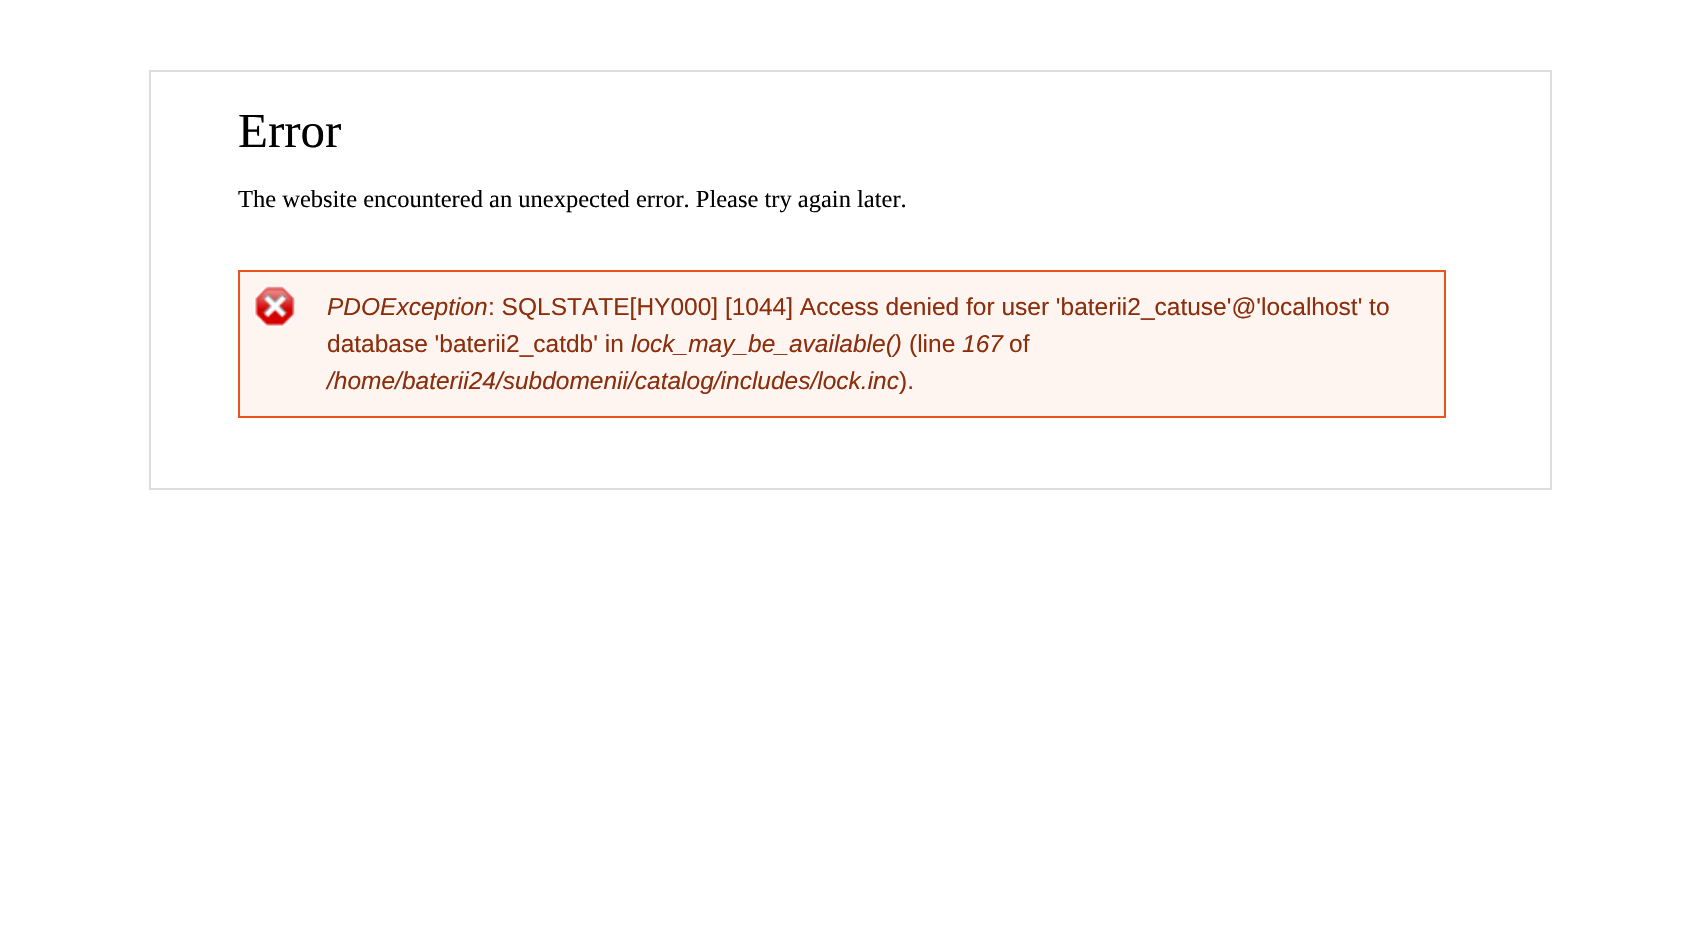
void draw(SkCanvas* canvas) {
	SkPaint paint;
	paint.setAntiAlias(true);
	canvas->clear(0xffffffff);
	paint.setStroke(true);
	paint.setStrokeWidth(2);
	paint.setColor(0xffdddddd);
	canvas->drawRect(SkRect::MakeXYWH(150, 71, 1401, 418), paint);
	SkFont f1(fontMgr->matchFamilyStyle("Liberation Serif", SkFontStyle::Normal()), 49);
	f1.setSubpixel(true);
	paint.setStroke(false);
	paint.setColor(0xff000000);
	canvas->drawString("Error", 238, 147, f1, paint);
	SkFont f2(fontMgr->matchFamilyStyle("Liberation Serif", SkFontStyle::Normal()), 24.5);
	f2.setSubpixel(true);
	canvas->drawString("The website encountered an unexpected error. Please try again later.", 238, 207, f2, paint);
	paint.setColor(0xfffef5f1);
	canvas->drawRect(SkRect::MakeXYWH(240, 272, 1204, 144), paint);
	canvas->drawImageRect(SkImages::DeferredFromEncodedData(SkData::MakeFromFileName("img1.png")), SkRect::MakeXYWH(254, 285, 42, 42), SkSamplingOptions());
	paint.setStroke(true);
	paint.setColor(0xffed541d);
	canvas->drawRect(SkRect::MakeXYWH(239, 271, 1206, 146), paint);
	SkFont f3(fontMgr->matchFamilyStyle("Liberation Sans", SkFontStyle::Italic()), 24.5);
	f3.setSubpixel(true);
	paint.setStroke(false);
	paint.setColor(0xff8c2e0b);
	canvas->drawString("PDOException", 327, 315, f3, paint);
	SkFont f4(fontMgr->matchFamilyStyle("Liberation Sans", SkFontStyle::Normal()), 24.5);
	f4.setSubpixel(true);
	canvas->drawString(": SQLSTATE[HY000] [1044] Access denied for user 'baterii2_catuse'@'localhost' to", 488, 315, f4, paint);
	canvas->drawString("database 'baterii2_catdb' in", 327, 352, f4, paint);
	canvas->drawString("lock_may_be_available()", 631, 352, f3, paint);
	canvas->drawString("(line", 909, 352, f4, paint);
	canvas->drawString("167", 962, 352, f3, paint);
	canvas->drawString("of", 1009, 352, f4, paint);
	canvas->drawString("/home/baterii24/subdomenii/catalog/includes/lock.inc", 327, 389, f3, paint);
	canvas->drawString(").", 899, 389, f4, paint);
}
